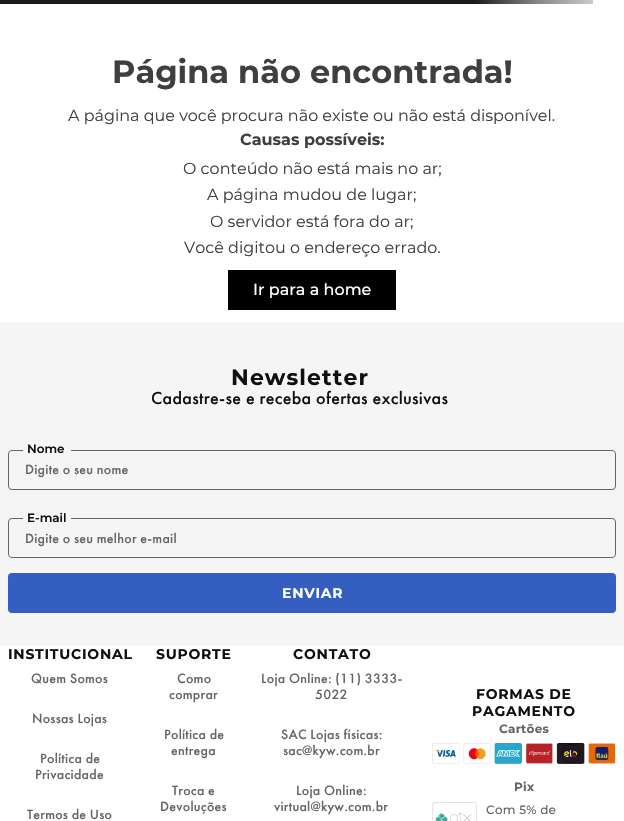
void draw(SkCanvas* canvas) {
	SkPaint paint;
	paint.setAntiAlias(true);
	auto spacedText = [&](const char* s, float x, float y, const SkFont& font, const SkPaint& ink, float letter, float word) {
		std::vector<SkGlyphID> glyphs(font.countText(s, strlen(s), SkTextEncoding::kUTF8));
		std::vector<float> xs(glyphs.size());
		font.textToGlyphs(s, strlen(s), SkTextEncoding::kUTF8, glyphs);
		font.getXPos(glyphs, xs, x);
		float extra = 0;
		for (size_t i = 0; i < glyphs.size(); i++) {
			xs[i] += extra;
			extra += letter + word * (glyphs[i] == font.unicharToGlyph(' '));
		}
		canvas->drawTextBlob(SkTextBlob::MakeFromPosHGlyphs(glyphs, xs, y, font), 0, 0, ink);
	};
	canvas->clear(0xffffffff);
	{
		const SkColor colors[] = {0xff1a1a1a, 0xff808080, 0xffcccccc};
		const float stops[] = {0.8, 0.9, 1};
		const SkPoint ends[] = {{0, 2}, {593, 2}};
		paint.setShader(SkGradientShader::MakeLinear(ends, colors, stops, 3, SkTileMode::kClamp));
		paint.setAlpha(255);
	}
	canvas->drawRect(SkRect::MakeXYWH(0, 0, 593, 4), paint);
	SkFont f1(fontMgr->matchFamilyStyle("Montserrat", SkFontStyle::Bold()), 32);
	f1.setSubpixel(true);
	paint.setShader(nullptr);
	paint.setColor(0xff3f3f40);
	canvas->drawString("Página não encontrada!", 112, 83, f1, paint);
	SkFont f2(fontMgr->matchFamilyStyle("Montserrat", SkFontStyle::Normal()), 16);
	f2.setSubpixel(true);
	canvas->drawString("A página que você procura não existe ou não está disponível.", 68, 121, f2, paint);
	SkFont f3(fontMgr->matchFamilyStyle("Montserrat", SkFontStyle::Bold()), 16);
	f3.setSubpixel(true);
	canvas->drawString("Causas possíveis:", 240, 145, f3, paint);
	canvas->drawString("O conteúdo não está mais no ar;", 183, 174, f2, paint);
	canvas->drawString("A página mudou de lugar;", 207, 200, f2, paint);
	canvas->drawString("O servidor está fora do ar;", 210, 227, f2, paint);
	canvas->drawString("Você digitou o endereço errado.", 184, 253, f2, paint);
	paint.setColor(0xff000000);
	canvas->drawRect(SkRect::MakeXYWH(228, 270, 168, 40), paint);
	SkFont f4(fontMgr->matchFamilyStyle("Montserrat", SkFontStyle(500, SkFontStyle::kNormal_Width, SkFontStyle::kUpright_Slant)), 16);
	f4.setSubpixel(true);
	paint.setColor(0xffffffff);
	canvas->drawString("Ir para a home", 253, 295, f4, paint);
	paint.setColor(0xfff5f5f5);
	canvas->drawRect(SkRect::MakeXYWH(0, 322, 624, 324), paint);
	SkFont f5(fontMgr->matchFamilyStyle("Montserrat", SkFontStyle::Bold()), 22);
	f5.setSubpixel(true);
	paint.setColor(0xff101010);
	spacedText("Newsletter", 231, 385, f5, paint, 1.1, 0);
	SkFont f6(fontMgr->matchFamilyStyle("Futura PT", SkFontStyle(500, SkFontStyle::kNormal_Width, SkFontStyle::kUpright_Slant)), 18);
	f6.setSubpixel(true);
	spacedText("Cadastre-se e receba ofertas exclusivas", 151, 404, f6, paint, 0.35, 0);
	paint.setStroke(true);
	paint.setStrokeWidth(1);
	paint.setColor(0xff656565);
	canvas->drawRoundRect(SkRect::MakeXYWH(8.5, 450.5, 607, 39), 3.5, 3.5, paint);
	paint.setStroke(false);
	paint.setColor(0xfff5f5f5);
	canvas->drawRect(SkRect::MakeXYWH(23, 450, 48, 1), paint);
	SkFont f7(fontMgr->matchFamilyStyle("Montserrat", SkFontStyle(600, SkFontStyle::kNormal_Width, SkFontStyle::kUpright_Slant)), 12);
	f7.setSubpixel(true);
	paint.setColor(0xff101010);
	canvas->drawString("Nome", 27, 453, f7, paint);
	SkFont f8(fontMgr->matchFamilyStyle("Futura PT", SkFontStyle(500, SkFontStyle::kNormal_Width, SkFontStyle::kUpright_Slant)), 14);
	f8.setSubpixel(true);
	paint.setColor(0xff656565);
	spacedText("Digite o seu nome", 25, 474, f8, paint, 0.25, 0);
	paint.setStroke(true);
	canvas->drawRoundRect(SkRect::MakeXYWH(8.5, 518.5, 607, 39), 3.5, 3.5, paint);
	paint.setStroke(false);
	paint.setColor(0xfff5f5f5);
	canvas->drawRect(SkRect::MakeXYWH(23, 518, 48, 1), paint);
	paint.setColor(0xff101010);
	canvas->drawString("E-mail", 27, 522, f7, paint);
	paint.setColor(0xff656565);
	spacedText("Digite o seu melhor e-mail", 25, 543, f8, paint, 0.25, 0);
	paint.setColor(0xff345ec0);
	canvas->drawRoundRect(SkRect::MakeXYWH(8, 573, 608, 40), 4, 4, paint);
	SkFont f9(fontMgr->matchFamilyStyle("Montserrat", SkFontStyle::Bold()), 14);
	f9.setSubpixel(true);
	paint.setColor(0xffffffff);
	spacedText("ENVIAR", 282, 598, f9, paint, 0.75, 0);
	paint.setColor(0xff101010);
	spacedText("INSTITUCIONAL", 8, 659, f9, paint, 0.75, 0);
	paint.setColor(0xff656565);
	spacedText("Quem Somos", 31, 683, f8, paint, 0.25, 0);
	spacedText("Nossas Lojas", 32, 723, f8, paint, 0.25, 0);
	spacedText("Política de", 40, 763, f8, paint, 0.25, 0);
	spacedText("Privacidade", 35, 779, f8, paint, 0.25, 0);
	spacedText("Termos de Uso", 27, 819, f8, paint, 0.25, 0);
	paint.setColor(0xff101010);
	spacedText("SUPORTE", 156, 659, f9, paint, 0.75, 0);
	paint.setColor(0xff656565);
	spacedText("Como", 177, 683, f8, paint, 0.25, 0);
	spacedText("comprar", 169, 699, f8, paint, 0.25, 0);
	spacedText("Política de", 164, 739, f8, paint, 0.25, 0);
	spacedText("entrega", 171, 755, f8, paint, 0.25, 0);
	spacedText("Troca e", 172, 795, f8, paint, 0.25, 0);
	spacedText("Devoluções", 160, 811, f8, paint, 0.25, 0);
	paint.setColor(0xff101010);
	spacedText("CONTATO", 293, 659, f9, paint, 0.75, 0);
	paint.setColor(0xff656565);
	spacedText("Loja Online: (11) 3333-", 261, 683, f8, paint, 0.25, 0);
	spacedText("5022", 315, 699, f8, paint, 0.25, 0);
	spacedText("SAC Lojas físicas:", 281, 739, f8, paint, 0.25, 0);
	spacedText("sac@kyw.com.br", 283, 755, f8, paint, 0.25, 0);
	spacedText("Loja Online:", 296, 795, f8, paint, 0.25, 0);
	spacedText("virtual@kyw.com.br", 274, 811, f8, paint, 0.25, 0);
	paint.setColor(0xff101010);
	spacedText("FORMAS DE", 476, 699, f9, paint, 0.75, 0);
	spacedText("PAGAMENTO", 472, 716, f9, paint, 0.75, 0);
	SkFont f10(fontMgr->matchFamilyStyle("Montserrat", SkFontStyle::Bold()), 12);
	f10.setSubpixel(true);
	paint.setColor(0xff656565);
	spacedText("Cartões", 499, 733, f10, paint, 0.25, 0);
	canvas->drawImageRect(SkImages::DeferredFromEncodedData(SkData::MakeFromFileName("img1.png")), SkRect::MakeXYWH(432, 743, 184, 21), SkSamplingOptions());
	spacedText("Pix", 514, 791, f10, paint, 0.25, 0);
	canvas->drawImageRect(SkImages::DeferredFromEncodedData(SkData::MakeFromFileName("img2.png")), SkRect::MakeXYWH(432, 802, 45, 19), SkSamplingOptions());
	SkFont f11(fontMgr->matchFamilyStyle("Montserrat", SkFontStyle(500, SkFontStyle::kNormal_Width, SkFontStyle::kUpright_Slant)), 12);
	f11.setSubpixel(true);
	spacedText("Com 5% de", 486, 814, f11, paint, 0.25, 0);
}
